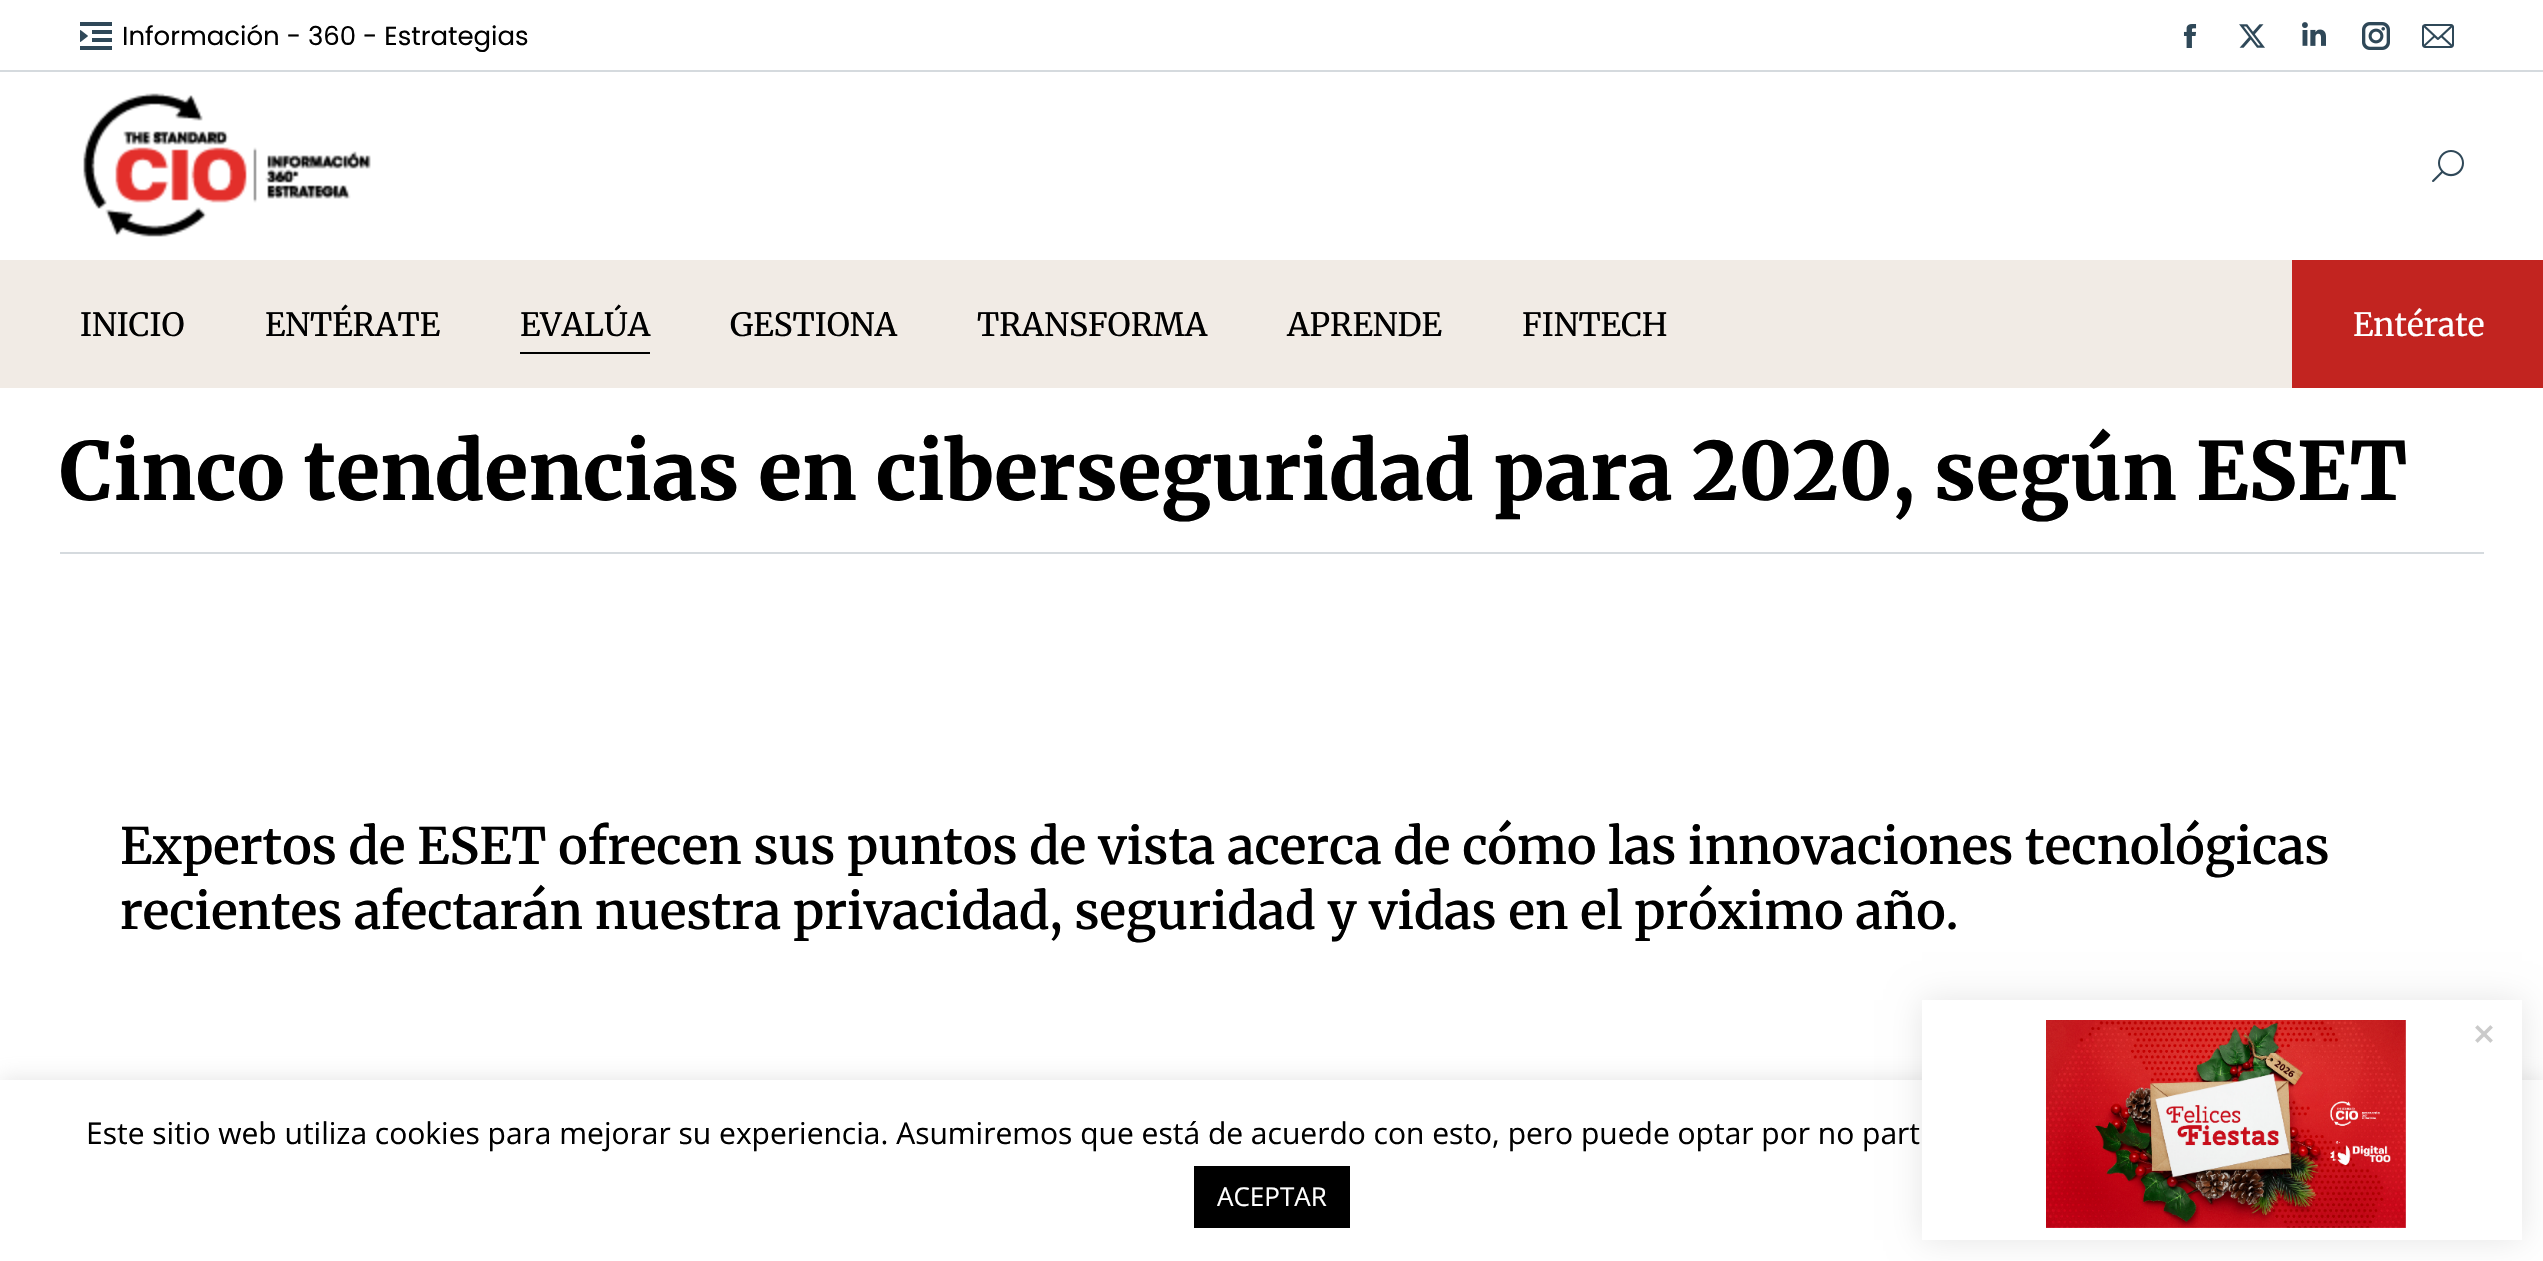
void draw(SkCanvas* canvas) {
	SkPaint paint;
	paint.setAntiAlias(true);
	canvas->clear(0xffffffff);
	canvas->drawImageRect(SkImages::DeferredFromEncodedData(SkData::MakeFromFileName("img1.png")), SkRect::MakeXYWH(80, 22, 32, 28), SkSamplingOptions());
	SkFont f1(fontMgr->matchFamilyStyle("Poppins", SkFontStyle::Normal()), 26);
	f1.setSubpixel(true);
	paint.setColor(0xff000000);
	canvas->drawString("Información - 360 - Estrategias", 122, 45, f1, paint);
	canvas->drawImageRect(SkImages::DeferredFromEncodedData(SkData::MakeFromFileName("img2.png")), SkRect::MakeXYWH(2183, 24, 14, 24), SkSamplingOptions());
	canvas->drawImageRect(SkImages::DeferredFromEncodedData(SkData::MakeFromFileName("img3.png")), SkRect::MakeXYWH(2239, 24, 26, 24), SkSamplingOptions());
	canvas->drawImageRect(SkImages::DeferredFromEncodedData(SkData::MakeFromFileName("img4.png")), SkRect::MakeXYWH(2302, 22, 24, 24), SkSamplingOptions());
	canvas->drawImageRect(SkImages::DeferredFromEncodedData(SkData::MakeFromFileName("img5.png")), SkRect::MakeXYWH(2362, 22, 28, 28), SkSamplingOptions());
	canvas->drawImageRect(SkImages::DeferredFromEncodedData(SkData::MakeFromFileName("img6.png")), SkRect::MakeXYWH(2422, 24, 32, 24), SkSamplingOptions());
	paint.setColor(0xffd5dade);
	canvas->drawRect(SkRect::MakeXYWH(0, 70, 2543, 2), paint);
	canvas->drawImageRect(SkImages::DeferredFromEncodedData(SkData::MakeFromFileName("img7.png")), SkRect::MakeXYWH(83, 93, 288, 144), SkSamplingOptions());
	canvas->drawImageRect(SkImages::DeferredFromEncodedData(SkData::MakeFromFileName("img8.png")), SkRect::MakeXYWH(2432, 150, 32, 32), SkSamplingOptions());
	paint.setColor(0xfff1ebe5);
	canvas->drawRect(SkRect::MakeXYWH(0, 260, 2292, 128), paint);
	SkFont f2(fontMgr->matchFamilyStyle("Merriweather", SkFontStyle::Normal()), 32);
	f2.setSubpixel(true);
	paint.setColor(0xff000000);
	canvas->drawString("INICIO", 80, 336, f2, paint);
	canvas->drawString("ENTÉRATE", 265, 336, f2, paint);
	canvas->drawString("EVALÚA", 520, 336, f2, paint);
	canvas->drawRect(SkRect::MakeXYWH(520, 352, 130, 2), paint);
	canvas->drawString("GESTIONA", 730, 336, f2, paint);
	canvas->drawString("TRANSFORMA", 977, 336, f2, paint);
	canvas->drawString("APRENDE", 1287, 336, f2, paint);
	canvas->drawString("FINTECH", 1522, 336, f2, paint);
	paint.setColor(0xffc22420);
	canvas->drawRect(SkRect::MakeXYWH(2292, 260, 251, 128), paint);
	paint.setColor(0xffffffff);
	canvas->drawString("Entérate", 2353, 336, f2, paint);
	paint.setColor(0xffd5dade);
	canvas->drawRect(SkRect::MakeXYWH(60, 552, 2424, 2), paint);
	SkFont f3(fontMgr->matchFamilyStyle("Merriweather", SkFontStyle(800, SkFontStyle::kNormal_Width, SkFontStyle::kUpright_Slant)), 80);
	f3.setSubpixel(true);
	paint.setColor(0xff000000);
	canvas->drawString("Cinco tendencias en ciberseguridad para 2020, según ESET", 60, 500, f3, paint);
	SkFont f4(fontMgr->matchFamilyStyle("Merriweather", SkFontStyle(600, SkFontStyle::kNormal_Width, SkFontStyle::kUpright_Slant)), 50);
	f4.setSubpixel(true);
	canvas->drawString("Expertos de ESET ofrecen sus puntos de vista acerca de cómo las innovaciones tecnológicas", 120, 864, f4, paint);
	canvas->drawString("recientes afectarán nuestra privacidad, seguridad y vidas en el próximo año.", 120, 929, f4, paint);
	paint.setColor(0x4dacabab);
	paint.setMaskFilter(SkMaskFilter::MakeBlur(kNormal_SkBlurStyle, 10));
	canvas->drawRect(SkRect::MakeXYWH(0, 1078, 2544, 182), paint);
	paint.setMaskFilter(nullptr);
	paint.setColor(0xffffffff);
	canvas->drawRect(SkRect::MakeXYWH(0, 1080, 2543, 181), paint);
	SkFont f5(fontMgr->matchFamilyStyle("Open Sans", SkFontStyle::Normal()), 30);
	f5.setSubpixel(true);
	paint.setColor(0xff000000);
	canvas->drawString("Este sitio web utiliza cookies para mejorar su experiencia. Asumiremos que está de acuerdo con esto, pero puede optar por no part", 86, 1144, f5, paint);
	canvas->drawRect(SkRect::MakeXYWH(1194, 1166, 156, 62), paint);
	SkFont f6(fontMgr->matchFamilyStyle("Open Sans", SkFontStyle::Normal()), 26);
	f6.setSubpixel(true);
	paint.setColor(0xffffffff);
	canvas->drawString("ACEPTAR", 1217, 1206, f6, paint);
	paint.setColor(0x1a000000);
	paint.setMaskFilter(SkMaskFilter::MakeBlur(kNormal_SkBlurStyle, 16));
	canvas->drawRect(SkRect::MakeXYWH(1922, 1000, 600, 240), paint);
	paint.setMaskFilter(nullptr);
	paint.setColor(0xffffffff);
	canvas->drawRect(SkRect::MakeXYWH(1922, 1000, 600, 240), paint);
	canvas->drawImageRect(SkImages::DeferredFromEncodedData(SkData::MakeFromFileName("img9.png")), SkRect::MakeXYWH(2046, 1020, 360, 208), SkSamplingOptions());
	canvas->drawImageRect(SkImages::DeferredFromEncodedData(SkData::MakeFromFileName("img10.png")), SkRect::MakeXYWH(2475, 1025, 18, 18), SkSamplingOptions());
}
